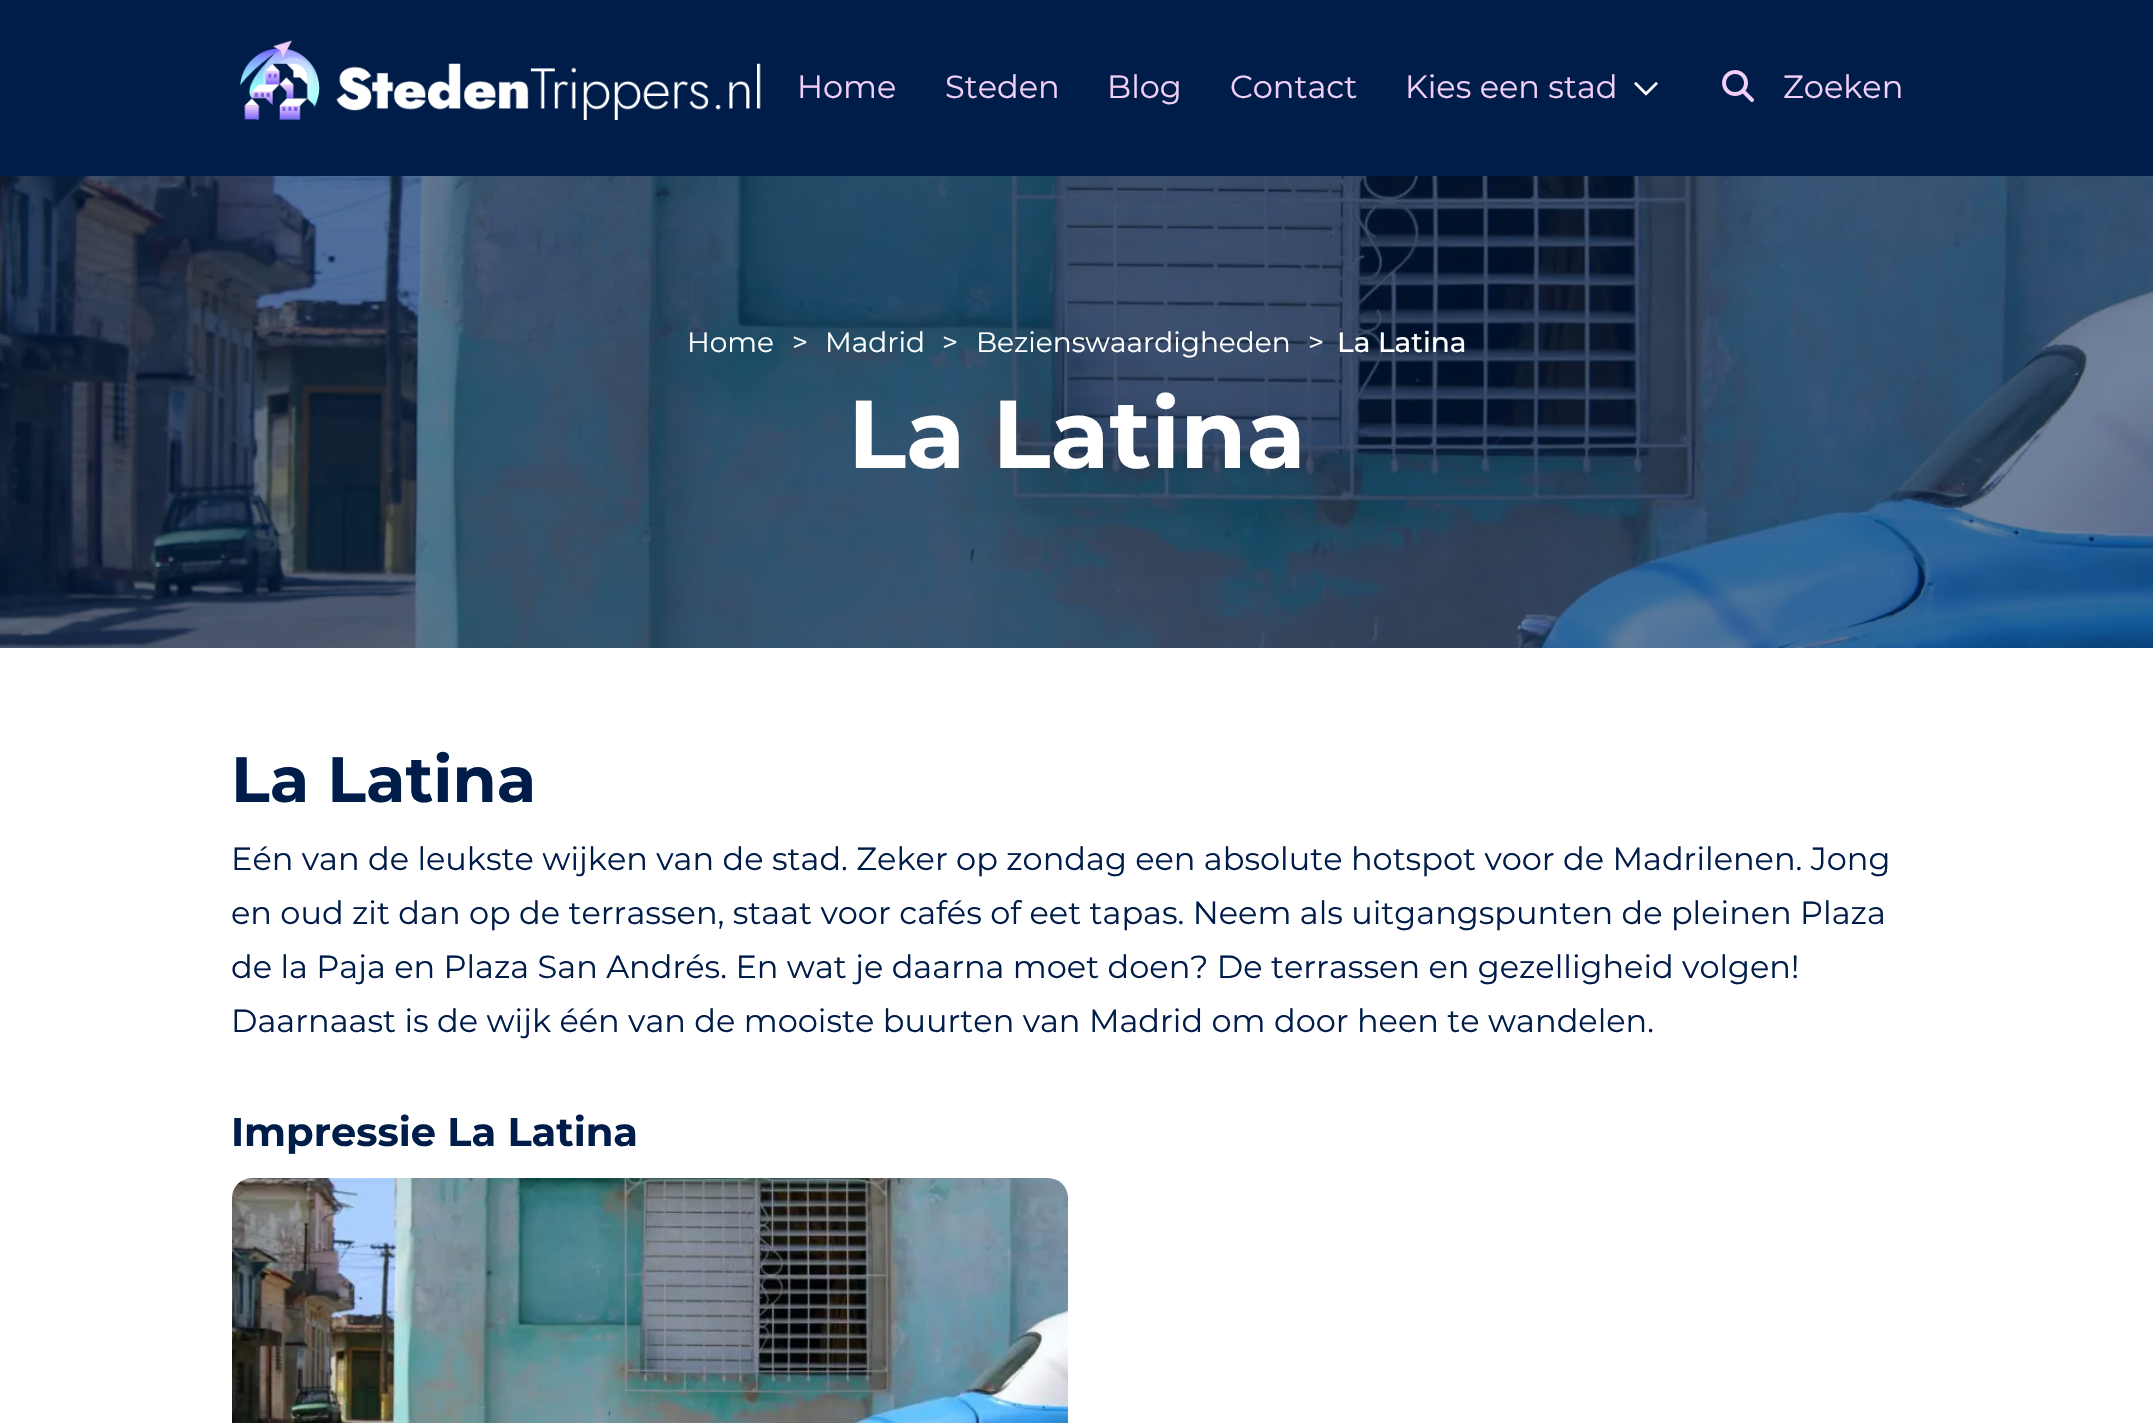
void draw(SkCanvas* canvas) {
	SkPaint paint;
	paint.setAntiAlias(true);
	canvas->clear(0xffffffff);
	paint.setColor(0xff001c49);
	canvas->drawRect(SkRect::MakeXYWH(0, 0, 2153, 176), paint);
	canvas->drawImageRect(SkImages::DeferredFromEncodedData(SkData::MakeFromFileName("img1.png")), SkRect::MakeXYWH(240, 40, 521, 80), SkSamplingOptions());
	SkFont f1(fontMgr->matchFamilyStyle("Montserrat", SkFontStyle::Normal()), 32);
	f1.setSubpixel(true);
	paint.setColor(0xfff1cff9);
	canvas->drawString("Home", 797, 98, f1, paint);
	canvas->drawString("Steden", 945, 98, f1, paint);
	canvas->drawString("Blog", 1107, 98, f1, paint);
	canvas->drawString("Contact", 1230, 98, f1, paint);
	canvas->drawString("Kies een stad", 1405, 98, f1, paint);
	canvas->drawImageRect(SkImages::DeferredFromEncodedData(SkData::MakeFromFileName("img2.png")), SkRect::MakeXYWH(1634, 82, 24, 14), SkSamplingOptions());
	canvas->drawImageRect(SkImages::DeferredFromEncodedData(SkData::MakeFromFileName("img3.png")), SkRect::MakeXYWH(1722, 70, 32, 32), SkSamplingOptions());
	canvas->drawString("Zoeken", 1783, 98, f1, paint);
	canvas->drawImageRect(SkImages::DeferredFromEncodedData(SkData::MakeFromFileName("img4.png")), SkRect::MakeXYWH(0, 176, 2153, 472), SkSamplingOptions());
	SkFont f2(fontMgr->matchFamilyStyle("Montserrat", SkFontStyle::Normal()), 28);
	f2.setSubpixel(true);
	paint.setColor(0xffffffff);
	canvas->drawString("Home", 687, 352, f2, paint);
	canvas->drawString(">", 792, 352, f2, paint);
	canvas->drawString("Madrid", 825, 352, f2, paint);
	canvas->drawString(">", 942, 352, f2, paint);
	canvas->drawString("Bezienswaardigheden", 976, 352, f2, paint);
	canvas->drawString(">", 1308, 352, f2, paint);
	SkFont f3(fontMgr->matchFamilyStyle("Montserrat", SkFontStyle(500, SkFontStyle::kNormal_Width, SkFontStyle::kUpright_Slant)), 28);
	f3.setSubpixel(true);
	canvas->drawString("La Latina", 1337, 352, f3, paint);
	SkFont f4(fontMgr->matchFamilyStyle("Montserrat", SkFontStyle::Bold()), 96);
	f4.setSubpixel(true);
	canvas->drawString("La Latina", 848, 468, f4, paint);
	SkFont f5(fontMgr->matchFamilyStyle("Montserrat", SkFontStyle::Bold()), 64);
	f5.setSubpixel(true);
	paint.setColor(0xff001c49);
	canvas->drawString("La Latina", 231, 802, f5, paint);
	canvas->drawString("Eén van de leukste wijken van de stad. Zeker op zondag een absolute hotspot voor de Madrilenen. Jong", 231, 870, f1, paint);
	canvas->drawString("en oud zit dan op de terrassen, staat voor cafés of eet tapas. Neem als uitgangspunten de pleinen Plaza", 231, 924, f1, paint);
	canvas->drawString("de la Paja en Plaza San Andrés. En wat je daarna moet doen? De terrassen en gezelligheid volgen!", 231, 978, f1, paint);
	canvas->drawString("Daarnaast is de wijk één van de mooiste buurten van Madrid om door heen te wandelen.", 231, 1032, f1, paint);
	SkFont f6(fontMgr->matchFamilyStyle("Montserrat", SkFontStyle::Bold()), 40);
	f6.setSubpixel(true);
	canvas->drawString("Impressie La Latina", 231, 1146, f6, paint);
	canvas->drawImageRect(SkImages::DeferredFromEncodedData(SkData::MakeFromFileName("img5.png")), SkRect::MakeXYWH(232, 1178, 836, 245), SkSamplingOptions());
}
